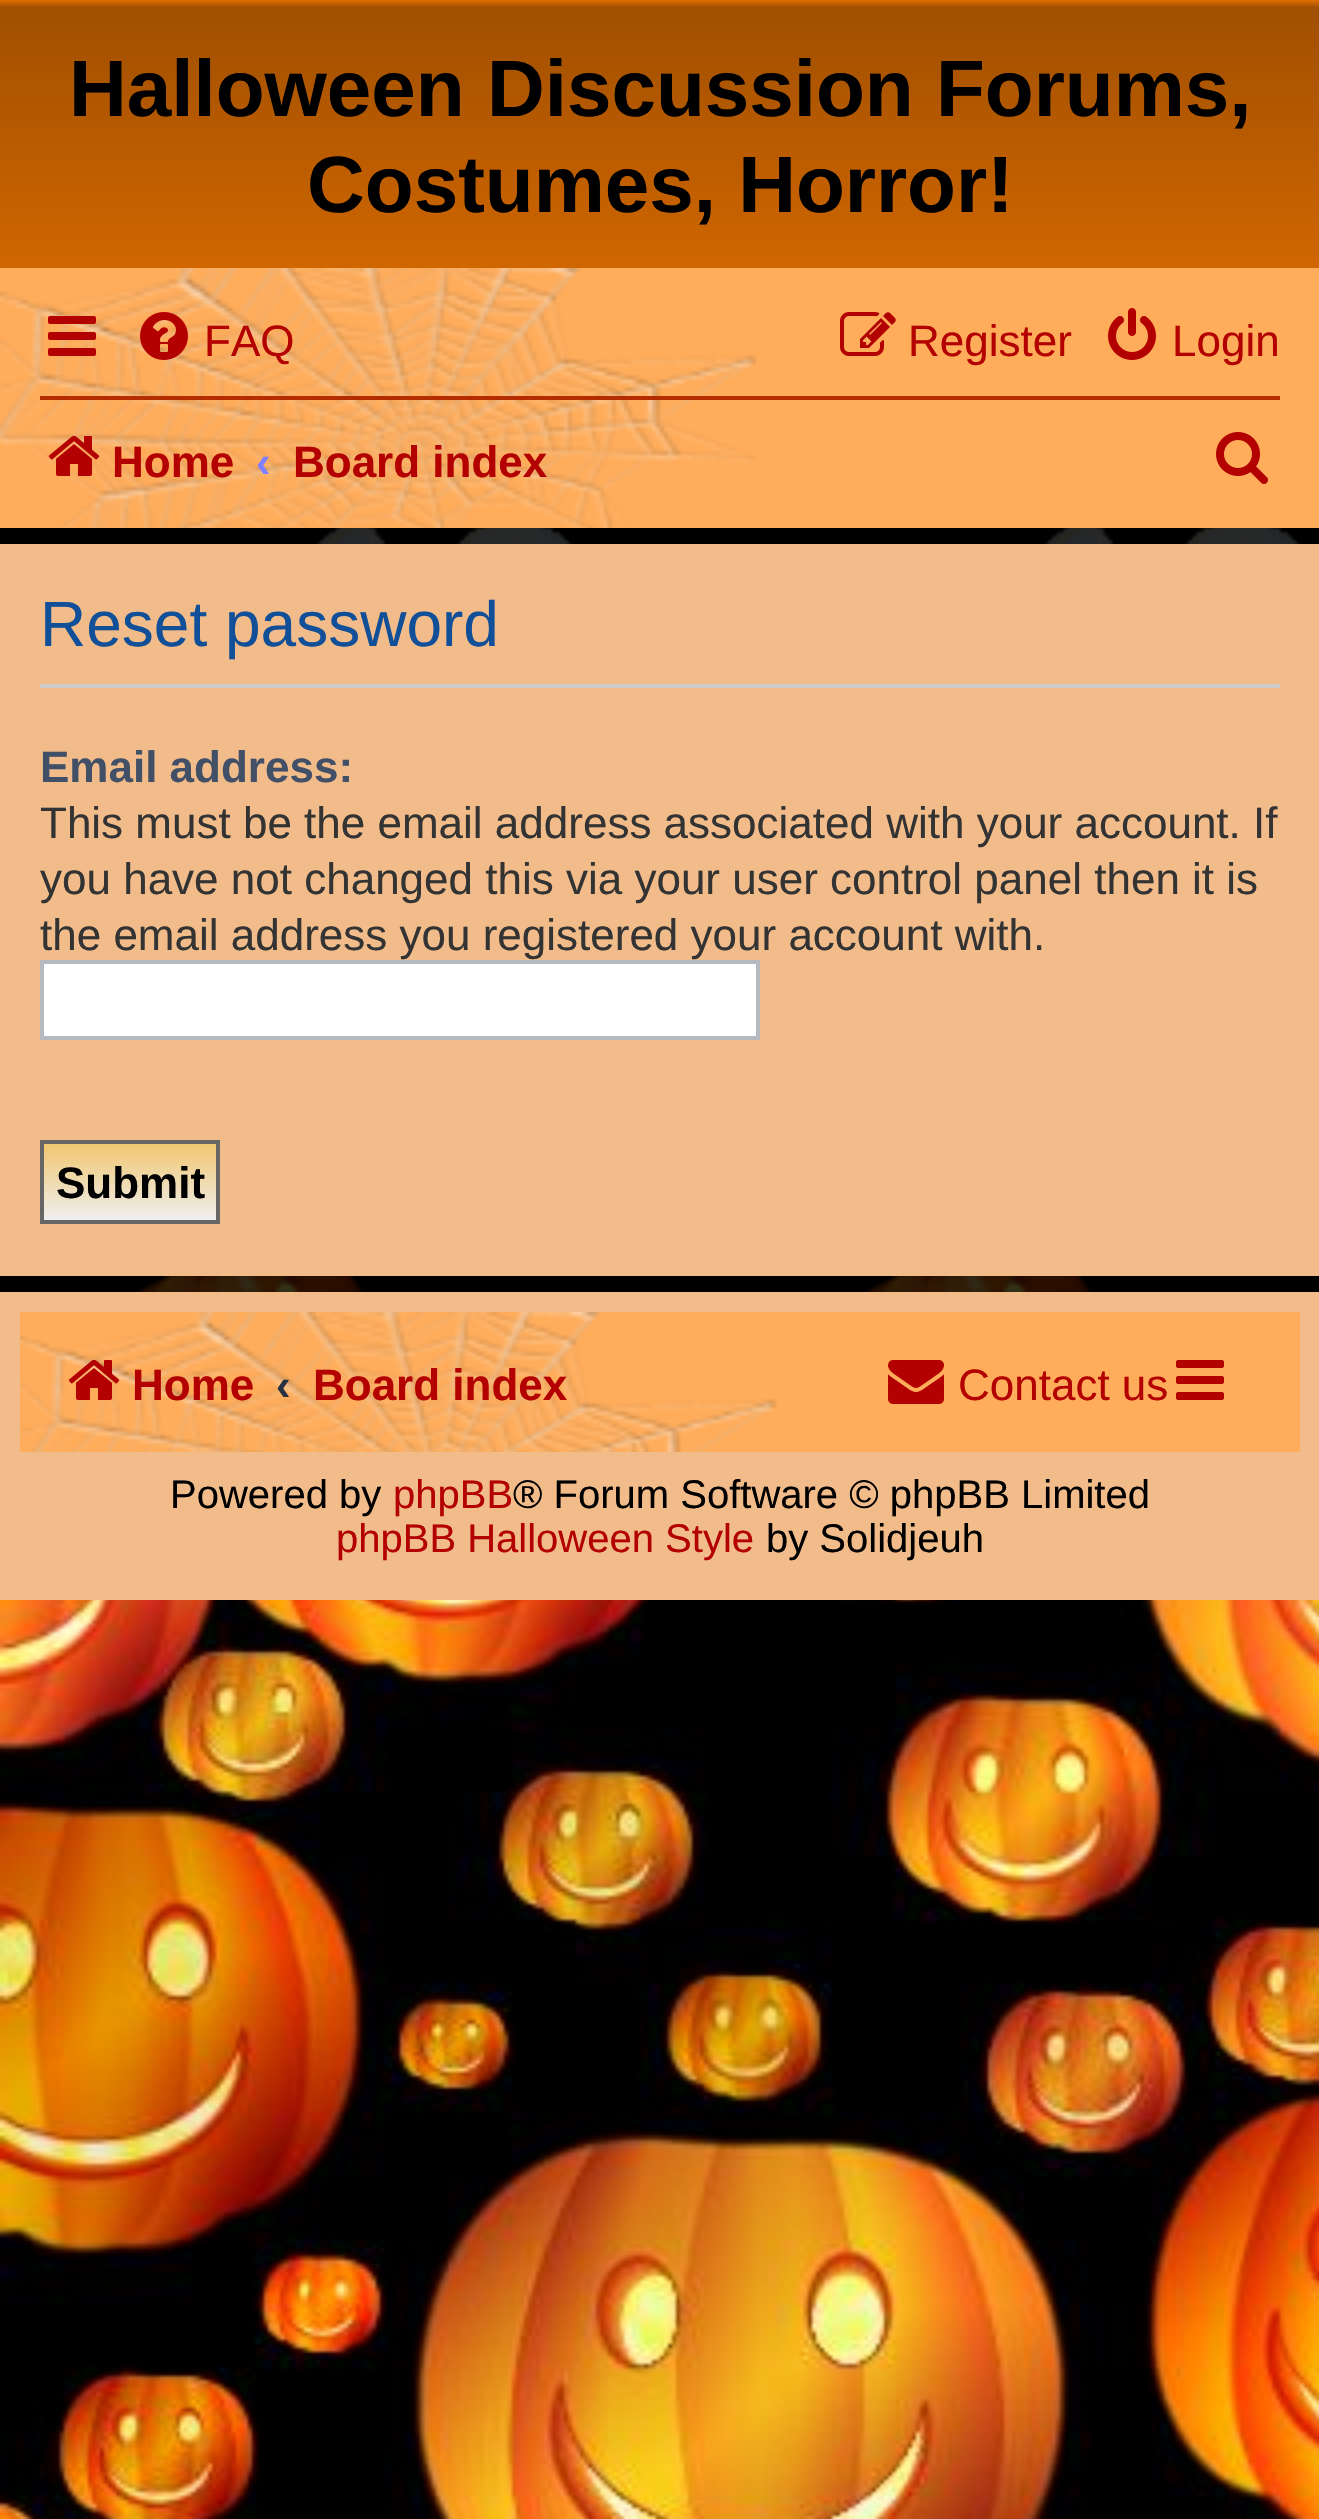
void draw(SkCanvas* canvas) {
	SkPaint paint;
	paint.setAntiAlias(true);
	canvas->clear(0xffffffff);
	canvas->drawImageRect(SkImages::DeferredFromEncodedData(SkData::MakeFromFileName("img1.png")), SkRect::MakeXYWH(0, 1600, 1319, 919), SkSamplingOptions());
	canvas->drawImageRect(SkImages::DeferredFromEncodedData(SkData::MakeFromFileName("img2.png")), SkRect::MakeXYWH(0, 528, 1319, 764), SkSamplingOptions());
	{
		const SkColor colors[] = {0xffe26f00, 0xffa04f00, 0xffe26f00};
		const float stops[] = {0, 0.02, 1};
		const SkPoint ends[] = {{660, 0}, {660, 368}};
		paint.setShader(SkGradientShader::MakeLinear(ends, colors, stops, 3, SkTileMode::kClamp));
		paint.setAlpha(255);
	}
	canvas->drawRect(SkRect::MakeXYWH(0, 0, 1319, 268), paint);
	SkFont f1(fontMgr->matchFamilyStyle("Liberation Sans", SkFontStyle::Bold()), 80);
	f1.setSubpixel(true);
	paint.setShader(nullptr);
	paint.setColor(0xff000000);
	canvas->drawString("Halloween Discussion Forums,", 69, 116, f1, paint);
	canvas->drawString("Costumes, Horror!", 307, 212, f1, paint);
	paint.setColor(0xffffad5b);
	canvas->drawRect(SkRect::MakeXYWH(0, 268, 1319, 260), paint);
	canvas->drawImageRect(SkImages::DeferredFromEncodedData(SkData::MakeFromFileName("img3.png")), SkRect::MakeXYWH(0, 268, 757, 260), SkSamplingOptions());
	canvas->drawImageRect(SkImages::DeferredFromEncodedData(SkData::MakeFromFileName("img4.png")), SkRect::MakeXYWH(48, 316, 48, 40), SkSamplingOptions());
	canvas->drawImageRect(SkImages::DeferredFromEncodedData(SkData::MakeFromFileName("img5.png")), SkRect::MakeXYWH(140, 312, 48, 48), SkSamplingOptions());
	SkFont f2(fontMgr->matchFamilyStyle("Liberation Sans", SkFontStyle::Normal()), 44);
	f2.setSubpixel(true);
	paint.setColor(0xffb30000);
	canvas->drawString("FAQ", 204, 356, f2, paint);
	canvas->drawImageRect(SkImages::DeferredFromEncodedData(SkData::MakeFromFileName("img6.png")), SkRect::MakeXYWH(840, 312, 56, 44), SkSamplingOptions());
	canvas->drawString("Register", 908, 356, f2, paint);
	canvas->drawImageRect(SkImages::DeferredFromEncodedData(SkData::MakeFromFileName("img7.png")), SkRect::MakeXYWH(1108, 308, 48, 52), SkSamplingOptions());
	canvas->drawString("Login", 1172, 356, f2, paint);
	paint.setColor(0xffb32d00);
	canvas->drawRect(SkRect::MakeXYWH(40, 396, 1240, 4), paint);
	canvas->drawImageRect(SkImages::DeferredFromEncodedData(SkData::MakeFromFileName("img8.png")), SkRect::MakeXYWH(48, 435, 52, 41), SkSamplingOptions());
	SkFont f3(fontMgr->matchFamilyStyle("Liberation Sans", SkFontStyle::Bold()), 44);
	f3.setSubpixel(true);
	paint.setColor(0xffb30000);
	canvas->drawString("Home", 112, 477, f3, paint);
	paint.setColor(0xff8080ff);
	canvas->drawString("‹", 256, 477, f3, paint);
	paint.setColor(0xffb30000);
	canvas->drawString("Board index", 293, 477, f3, paint);
	canvas->drawImageRect(SkImages::DeferredFromEncodedData(SkData::MakeFromFileName("img9.png")), SkRect::MakeXYWH(1216, 432, 52, 52), SkSamplingOptions());
	paint.setColor(0xfff2bc8a);
	canvas->drawRect(SkRect::MakeXYWH(0, 544, 1319, 732), paint);
	paint.setColor(0xffcccccc);
	canvas->drawRect(SkRect::MakeXYWH(40, 684, 1240, 4), paint);
	SkFont f4(fontMgr->matchFamilyStyle("Liberation Sans", SkFontStyle::Normal()), 64);
	f4.setSubpixel(true);
	paint.setColor(0xff115098);
	canvas->drawString("Reset password", 40, 646, f4, paint);
	paint.setColor(0xff425067);
	canvas->drawString("Email address:", 40, 782, f3, paint);
	paint.setColor(0xff333333);
	canvas->drawString("This must be the email address associated with your account. If", 40, 838, f2, paint);
	canvas->drawString("you have not changed this via your user control panel then it is", 40, 894, f2, paint);
	canvas->drawString("the email address you registered your account with.", 40, 950, f2, paint);
	paint.setColor(0xffffffff);
	canvas->drawRect(SkRect::MakeXYWH(42, 962, 716, 76), paint);
	paint.setStroke(true);
	paint.setStrokeWidth(4);
	paint.setColor(0xffb4bac0);
	canvas->drawRect(SkRect::MakeXYWH(42, 962, 716, 76), paint);
	paint.setStroke(false);
	{
		const SkColor colors[] = {0xfff1c770, 0xffefefef};
		const float stops[] = {0, 1};
		const SkPoint ends[] = {{130, 1144}, {130, 1220}};
		paint.setShader(SkGradientShader::MakeLinear(ends, colors, stops, 2, SkTileMode::kClamp));
		paint.setAlpha(255);
	}
	canvas->drawRect(SkRect::MakeXYWH(44, 1144, 172, 76), paint);
	paint.setStroke(true);
	paint.setShader(nullptr);
	paint.setColor(0xff666666);
	canvas->drawRect(SkRect::MakeXYWH(42, 1142, 176, 80), paint);
	paint.setStroke(false);
	paint.setColor(0xff000000);
	canvas->drawString("Submit", 56, 1198, f3, paint);
	paint.setColor(0xfff2bc8a);
	canvas->drawRect(SkRect::MakeXYWH(0, 1292, 1319, 308), paint);
	paint.setColor(0xffffad5b);
	canvas->drawRect(SkRect::MakeXYWH(20, 1312, 1280, 140), paint);
	canvas->drawImageRect(SkImages::DeferredFromEncodedData(SkData::MakeFromFileName("img10.png")), SkRect::MakeXYWH(20, 1312, 757, 140), SkSamplingOptions());
	canvas->drawImageRect(SkImages::DeferredFromEncodedData(SkData::MakeFromFileName("img11.png")), SkRect::MakeXYWH(68, 1359, 52, 41), SkSamplingOptions());
	paint.setColor(0xffb30000);
	canvas->drawString("Home", 132, 1400, f3, paint);
	paint.setColor(0xff28313f);
	canvas->drawString("‹", 276, 1400, f3, paint);
	paint.setColor(0xffb30000);
	canvas->drawString("Board index", 313, 1400, f3, paint);
	canvas->drawImageRect(SkImages::DeferredFromEncodedData(SkData::MakeFromFileName("img12.png")), SkRect::MakeXYWH(888, 1360, 56, 44), SkSamplingOptions());
	canvas->drawString("Contact us", 958, 1400, f2, paint);
	canvas->drawImageRect(SkImages::DeferredFromEncodedData(SkData::MakeFromFileName("img13.png")), SkRect::MakeXYWH(1176, 1360, 48, 40), SkSamplingOptions());
	SkFont f5(fontMgr->matchFamilyStyle("Liberation Sans", SkFontStyle::Normal()), 40);
	f5.setSubpixel(true);
	paint.setColor(0xff000000);
	canvas->drawString("Powered by", 170, 1508, f5, paint);
	paint.setColor(0xffb30000);
	canvas->drawString("phpBB", 393, 1508, f5, paint);
	paint.setColor(0xff000000);
	canvas->drawString("® Forum Software © phpBB Limited", 513, 1508, f5, paint);
	paint.setColor(0xffb30000);
	canvas->drawString("phpBB Halloween Style", 336, 1552, f5, paint);
	paint.setColor(0xff000000);
	canvas->drawString("by Solidjeuh", 766, 1552, f5, paint);
}
